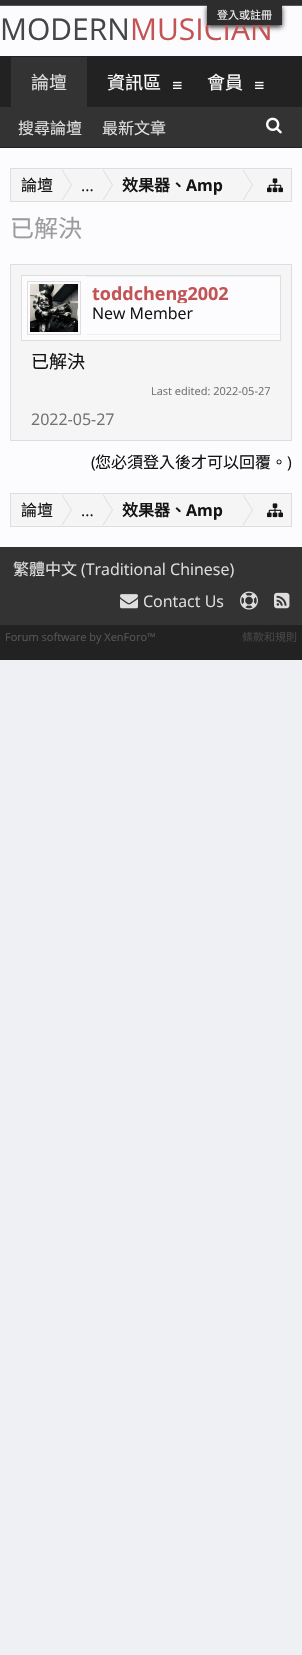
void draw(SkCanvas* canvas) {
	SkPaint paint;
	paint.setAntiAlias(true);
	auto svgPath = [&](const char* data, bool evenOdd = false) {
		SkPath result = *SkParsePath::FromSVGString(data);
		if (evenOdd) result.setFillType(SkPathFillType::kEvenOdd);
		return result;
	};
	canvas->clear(0xffeef0f4);
	paint.setColor(0xff2d2d2d);
	canvas->drawRect(SkRect::MakeXYWH(0, 0, 302, 5), paint);
	paint.setColor(0xff585858);
	canvas->drawRect(SkRect::MakeXYWH(0, 5, 302, 1), paint);
	paint.setColor(0xfffcfcff);
	canvas->drawRect(SkRect::MakeXYWH(0, 6, 302, 50), paint);
	paint.setColor(0xff2d2d2d);
	paint.setMaskFilter(SkMaskFilter::MakeBlur(kNormal_SkBlurStyle, 2.5));
	canvas->drawRect(SkRect::MakeXYWH(207, 7, 75, 20), paint);
	paint.setMaskFilter(nullptr);
	SkFont f1(fontMgr->matchFamilyStyle("Open Sans", SkFontStyle::Normal()), 30);
	f1.setSubpixel(true);
	paint.setColor(0xffc45454);
	canvas->drawString("MUSICIAN", 130, 40, f1, paint);
	paint.setColor(0xff2d2d2d);
	canvas->drawRect(SkRect::MakeXYWH(207, 5, 75, 20), paint);
	SkFont f2(fontMgr->matchFamilyStyle("Noto Sans CJK TC", SkFontStyle::Normal()), 11);
	f2.setSubpixel(true);
	paint.setColor(0xfff5f5f5);
	canvas->drawString("登入或註冊", 217, 19, f2, paint);
	paint.setColor(0xff464646);
	canvas->drawString("MODERN", 0, 40, f1, paint);
	paint.setColor(0xff222222);
	canvas->drawRect(SkRect::MakeXYWH(0, 56, 302, 92), paint);
	paint.setColor(0xff333333);
	canvas->drawRect(SkRect::MakeXYWH(11, 57, 76, 50), paint);
	SkFont f3(fontMgr->matchFamilyStyle("Noto Sans CJK TC", SkFontStyle::Normal()), 18);
	f3.setSubpixel(true);
	paint.setColor(0xffdedede);
	canvas->drawString("論壇", 31, 89, f3, paint);
	paint.setColor(0xff333333);
	canvas->drawRect(SkRect::MakeXYWH(0, 107, 302, 40), paint);
	SkFont f4(fontMgr->matchFamilyStyle("Noto Sans CJK TC", SkFontStyle::Normal()), 16);
	f4.setSubpixel(true);
	paint.setColor(0xffdedede);
	canvas->drawString("搜尋論壇", 18, 134, f4, paint);
	canvas->drawString("最新文章", 102, 134, f4, paint);
	paint.setColor(0xffffffff);
	canvas->drawString("資訊區", 107, 89, f3, paint);
	canvas->drawImageRect(SkImages::DeferredFromEncodedData(SkData::MakeFromFileName("img1.png")), SkRect::MakeXYWH(173, 81, 9, 8), SkSamplingOptions());
	canvas->drawString("會員", 207, 89, f3, paint);
	canvas->drawImageRect(SkImages::DeferredFromEncodedData(SkData::MakeFromFileName("img1.png")), SkRect::MakeXYWH(255, 81, 9, 8), SkSamplingOptions());
	canvas->drawImageRect(SkImages::DeferredFromEncodedData(SkData::MakeFromFileName("img2.png")), SkRect::MakeXYWH(266, 117, 16, 17), SkSamplingOptions());
	paint.setColor(0xfffcfcff);
	canvas->drawRect(SkRect::MakeXYWH(0, 148, 302, 399), paint);
	paint.setColor(0xfff5f5f5);
	canvas->drawRect(SkRect::MakeXYWH(10.5, 168.5, 281, 33), paint);
	paint.setStroke(true);
	paint.setStrokeWidth(1);
	paint.setColor(0xffdedede);
	canvas->drawRect(SkRect::MakeXYWH(10.5, 168.5, 281, 33), paint);
	paint.setStroke(false);
	paint.setColor(0xff141414);
	canvas->drawString("論壇", 21, 191, f4, paint);
	paint.setColor(0xffdedede);
	canvas->drawPath(svgPath("M62 201V169L72 185Z"), paint);
	paint.setColor(0xfff5f5f5);
	canvas->drawPath(svgPath("M61 201V169L71 185Z"), paint);
	SkFont f5(fontMgr->matchFamilyStyle("Open Sans", SkFontStyle::Normal()), 16);
	f5.setSubpixel(true);
	paint.setColor(0xff141414);
	canvas->drawString("...", 81, 191, f5, paint);
	paint.setColor(0xffdedede);
	canvas->drawPath(svgPath("M103 201V169L113 185Z"), paint);
	paint.setColor(0xfff5f5f5);
	canvas->drawPath(svgPath("M102 201V169L112 185Z"), paint);
	SkFont f6(fontMgr->matchFamilyStyle("Noto Sans CJK TC", SkFontStyle::Bold()), 16);
	f6.setSubpixel(true);
	paint.setColor(0xff141414);
	canvas->drawString("效果器、", 122, 191, f6, paint);
	SkFont f7(fontMgr->matchFamilyStyle("Open Sans", SkFontStyle::Bold()), 16);
	f7.setSubpixel(true);
	canvas->drawString("Amp", 186, 191, f7, paint);
	paint.setColor(0xffdedede);
	canvas->drawPath(svgPath("M243 201V169L253 185Z"), paint);
	paint.setColor(0xfff5f5f5);
	canvas->drawPath(svgPath("M242 201V169L252 185Z"), paint);
	canvas->drawImageRect(SkImages::DeferredFromEncodedData(SkData::MakeFromFileName("img3.png")), SkRect::MakeXYWH(267, 178, 16, 15), SkSamplingOptions());
	SkFont f8(fontMgr->matchFamilyStyle("Noto Sans CJK TC", SkFontStyle::Normal()), 24);
	f8.setSubpixel(true);
	paint.setColor(0xff9c9c9c);
	canvas->drawString("已解決", 10, 237, f8, paint);
	paint.setColor(0xfff5f5f5);
	canvas->drawRect(SkRect::MakeXYWH(10.5, 264.5, 281, 176), paint);
	paint.setStroke(true);
	paint.setColor(0xffdedede);
	canvas->drawRect(SkRect::MakeXYWH(10.5, 264.5, 281, 176), paint);
	paint.setStroke(false);
	paint.setColor(0xfffcfcff);
	canvas->drawRect(SkRect::MakeXYWH(21.5, 275.5, 259, 65), paint);
	paint.setStroke(true);
	paint.setColor(0xffdedede);
	canvas->drawRect(SkRect::MakeXYWH(21.5, 275.5, 259, 65), paint);
	canvas->drawRect(SkRect::MakeXYWH(27.5, 281.5, 53, 53), paint);
	canvas->drawImageRect(SkImages::DeferredFromEncodedData(SkData::MakeFromFileName("img4.png")), SkRect::MakeXYWH(30, 284, 48, 48), SkSamplingOptions());
	paint.setStroke(false);
	paint.setColor(0xffeef0f4);
	canvas->drawRect(SkRect::MakeXYWH(86, 276, 194, 1), paint);
	canvas->drawRect(SkRect::MakeXYWH(86, 334, 194, 1), paint);
	canvas->save();
	canvas->clipRect(SkRect::MakeXYWH(92, 283, 182, 20));
	SkFont f9(fontMgr->matchFamilyStyle("Open Sans", SkFontStyle::Bold()), 18);
	f9.setSubpixel(true);
	paint.setColor(0xffc45454);
	canvas->drawString("toddcheng2002", 92, 300, f9, paint);
	canvas->restore();
	paint.setColor(0xff141414);
	canvas->drawString("New Member", 92, 319, f5, paint);
	canvas->drawString("已解決", 31, 368, f3, paint);
	SkFont f10(fontMgr->matchFamilyStyle("Open Sans", SkFontStyle::Normal()), 11);
	f10.setSubpixel(true);
	paint.setColor(0xff717171);
	canvas->drawString("Last edited: 2022-05-27", 151, 395, f10, paint);
	canvas->drawString("2022-05-27", 31, 425, f5, paint);
	paint.setColor(0xff141414);
	canvas->drawString("(", 91, 468, f5, paint);
	canvas->drawString("您必須登入後才可以回覆。", 95, 468, f4, paint);
	canvas->drawString(")", 287, 468, f5, paint);
	paint.setColor(0xfff5f5f5);
	canvas->drawRect(SkRect::MakeXYWH(10.5, 493.5, 281, 33), paint);
	paint.setStroke(true);
	paint.setColor(0xffdedede);
	canvas->drawRect(SkRect::MakeXYWH(10.5, 493.5, 281, 33), paint);
	paint.setStroke(false);
	paint.setColor(0xff141414);
	canvas->drawString("論壇", 21, 516, f4, paint);
	paint.setColor(0xffdedede);
	canvas->drawPath(svgPath("M62 526V494L72 510Z"), paint);
	paint.setColor(0xfff5f5f5);
	canvas->drawPath(svgPath("M61 526V494L71 510Z"), paint);
	paint.setColor(0xff141414);
	canvas->drawString("...", 81, 516, f5, paint);
	paint.setColor(0xffdedede);
	canvas->drawPath(svgPath("M103 526V494L113 510Z"), paint);
	paint.setColor(0xfff5f5f5);
	canvas->drawPath(svgPath("M102 526V494L112 510Z"), paint);
	paint.setColor(0xff141414);
	canvas->drawString("效果器、", 122, 516, f6, paint);
	canvas->drawString("Amp", 186, 516, f7, paint);
	paint.setColor(0xffdedede);
	canvas->drawPath(svgPath("M243 526V494L253 510Z"), paint);
	paint.setColor(0xfff5f5f5);
	canvas->drawPath(svgPath("M242 526V494L252 510Z"), paint);
	canvas->drawImageRect(SkImages::DeferredFromEncodedData(SkData::MakeFromFileName("img3.png")), SkRect::MakeXYWH(267, 503, 16, 15), SkSamplingOptions());
	paint.setColor(0xff333333);
	canvas->drawRect(SkRect::MakeXYWH(0, 547, 302, 78), paint);
	paint.setColor(0xffdedede);
	canvas->drawString("繁體中文", 13, 575, f4, paint);
	canvas->drawString("(Traditional Chinese)", 81, 575, f5, paint);
	canvas->drawImageRect(SkImages::DeferredFromEncodedData(SkData::MakeFromFileName("img5.png")), SkRect::MakeXYWH(120, 594, 18, 15), SkSamplingOptions());
	canvas->drawString("Contact Us", 143, 607, f5, paint);
	canvas->drawImageRect(SkImages::DeferredFromEncodedData(SkData::MakeFromFileName("img6.png")), SkRect::MakeXYWH(240, 591, 18, 19), SkSamplingOptions());
	canvas->drawImageRect(SkImages::DeferredFromEncodedData(SkData::MakeFromFileName("img7.png")), SkRect::MakeXYWH(274, 592, 16, 17), SkSamplingOptions());
	paint.setColor(0xff222222);
	canvas->drawRect(SkRect::MakeXYWH(0, 625, 302, 35), paint);
	paint.setColor(0xff565656);
	canvas->drawString("Forum software by XenForo™", 5, 641, f10, paint);
	paint.setColor(0xff464646);
	canvas->drawString("條款和規則", 242, 641, f2, paint);
}
